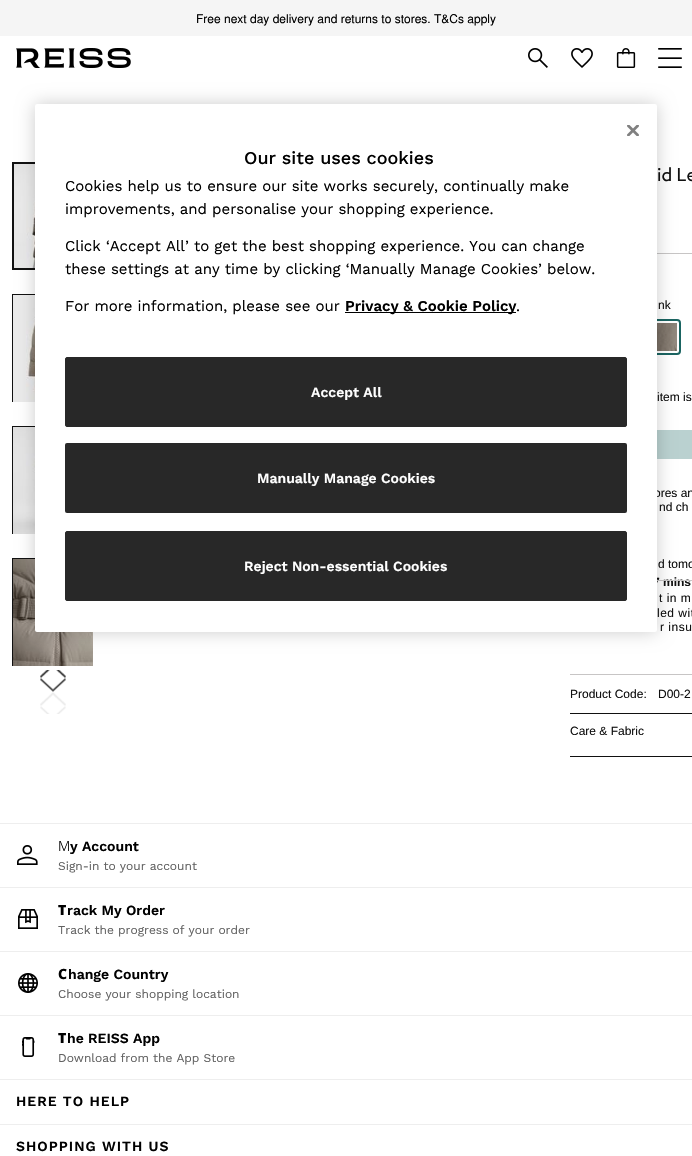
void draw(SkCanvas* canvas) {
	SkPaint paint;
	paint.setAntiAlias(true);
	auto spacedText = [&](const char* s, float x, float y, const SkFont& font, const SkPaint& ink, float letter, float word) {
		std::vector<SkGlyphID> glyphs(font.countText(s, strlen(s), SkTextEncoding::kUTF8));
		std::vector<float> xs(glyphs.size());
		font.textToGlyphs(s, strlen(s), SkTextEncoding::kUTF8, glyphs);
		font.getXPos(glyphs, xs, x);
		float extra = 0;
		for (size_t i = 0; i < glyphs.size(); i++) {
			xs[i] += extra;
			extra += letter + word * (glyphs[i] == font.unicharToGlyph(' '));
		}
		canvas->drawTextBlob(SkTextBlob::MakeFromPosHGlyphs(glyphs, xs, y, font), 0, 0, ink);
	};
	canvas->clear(0xffffffff);
	paint.setColor(0xfff5f5f5);
	canvas->drawRect(SkRect::MakeXYWH(0, 0, 692, 36), paint);
	SkFont f1(fontMgr->matchFamilyStyle("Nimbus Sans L", SkFontStyle::Normal()), 12);
	f1.setSubpixel(true);
	paint.setColor(0xff000000);
	canvas->drawString("Free next day delivery and returns to stores.", 196, 23, f1, paint);
	canvas->drawString("T&Cs apply", 434, 23, f1, paint);
	canvas->drawImageRect(SkImages::DeferredFromEncodedData(SkData::MakeFromFileName("img1.png")), SkRect::MakeXYWH(16, 48, 115, 20), SkSamplingOptions());
	canvas->drawImageRect(SkImages::DeferredFromEncodedData(SkData::MakeFromFileName("img2.png")), SkRect::MakeXYWH(528, 48, 20, 20), SkSamplingOptions());
	canvas->drawImageRect(SkImages::DeferredFromEncodedData(SkData::MakeFromFileName("img3.png")), SkRect::MakeXYWH(571, 48, 22, 20), SkSamplingOptions());
	canvas->drawImageRect(SkImages::DeferredFromEncodedData(SkData::MakeFromFileName("img4.png")), SkRect::MakeXYWH(616, 48, 20, 20), SkSamplingOptions());
	canvas->drawImageRect(SkImages::DeferredFromEncodedData(SkData::MakeFromFileName("img5.png")), SkRect::MakeXYWH(658, 48, 24, 20), SkSamplingOptions());
	paint.setStroke(true);
	paint.setStrokeWidth(2);
	paint.setColor(0xff111111);
	canvas->drawRect(SkRect::MakeXYWH(13, 163, 79, 106), paint);
	canvas->drawImageRect(SkImages::DeferredFromEncodedData(SkData::MakeFromFileName("img7.png")), SkRect::MakeXYWH(14, 164, 21, 104), SkSamplingOptions());
	canvas->save();
	canvas->clipRect(SkRect::MakeXYWH(12, 294, 81, 108));
	paint.setStrokeWidth(1);
	canvas->drawRect(SkRect::MakeXYWH(12.5, 294.5, 82, 109), paint);
	canvas->restore();
	canvas->drawImageRect(SkImages::DeferredFromEncodedData(SkData::MakeFromFileName("img8.png")), SkRect::MakeXYWH(13, 295, 22, 107), SkSamplingOptions());
	canvas->save();
	canvas->clipRect(SkRect::MakeXYWH(12, 426, 81, 108));
	canvas->drawRect(SkRect::MakeXYWH(12.5, 426.5, 82, 109), paint);
	canvas->restore();
	canvas->drawImageRect(SkImages::DeferredFromEncodedData(SkData::MakeFromFileName("img9.png")), SkRect::MakeXYWH(13, 427, 22, 107), SkSamplingOptions());
	canvas->save();
	canvas->clipRect(SkRect::MakeXYWH(12, 558, 81, 108));
	canvas->drawRect(SkRect::MakeXYWH(12.5, 558.5, 82, 109), paint);
	canvas->restore();
	canvas->drawImageRect(SkImages::DeferredFromEncodedData(SkData::MakeFromFileName("img10.png")), SkRect::MakeXYWH(13, 559, 80, 107), SkSamplingOptions());
	paint.setStroke(false);
	paint.setColor(0xffc7c5c5);
	canvas->drawRect(SkRect::MakeXYWH(657, 253, 35, 1), paint);
	paint.setStroke(true);
	paint.setStrokeWidth(2);
	paint.setColor(0xff1a6461);
	canvas->drawRoundRect(SkRect::MakeXYWH(646, 320, 34, 34), 3, 3, paint);
	canvas->drawImageRect(SkImages::DeferredFromEncodedData(SkData::MakeFromFileName("img12.png")), SkRect::MakeXYWH(657, 323, 20, 28), SkSamplingOptions());
	paint.setStroke(false);
	paint.setColor(0xffbad1d0);
	canvas->drawRect(SkRect::MakeXYWH(657, 431, 35, 27), paint);
	paint.setStroke(true);
	paint.setStrokeWidth(1);
	canvas->drawRect(SkRect::MakeXYWH(645.5, 430.5, 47, 28), paint);
	SkFont f2(fontMgr->matchFamilyStyle("Liberation Sans", SkFontStyle::Bold()), 12);
	f2.setSubpixel(true);
	paint.setStroke(false);
	paint.setColor(0xff111111);
	canvas->drawString("7 mins", 653, 586, f2, paint);
	paint.setColor(0xffc7c5c5);
	canvas->drawRect(SkRect::MakeXYWH(657, 580, 35, 1), paint);
	paint.setColor(0x33000000);
	paint.setMaskFilter(SkMaskFilter::MakeBlur(kNormal_SkBlurStyle, 9));
	canvas->drawRoundRect(SkRect::MakeXYWH(35, 104, 622, 528), 2, 2, paint);
	paint.setMaskFilter(nullptr);
	SkFont f3(fontMgr->matchFamilyStyle("Liberation Sans", SkFontStyle::Normal()), 12);
	f3.setSubpixel(true);
	paint.setColor(0xff111111);
	canvas->drawString("ores an", 654, 497, f3, paint);
	paint.setColor(0xffffffff);
	canvas->drawRoundRect(SkRect::MakeXYWH(35, 104, 622, 528), 2, 2, paint);
	canvas->drawImageRect(SkImages::DeferredFromEncodedData(SkData::MakeFromFileName("img6.png")), SkRect::MakeXYWH(627, 125, 12, 11), SkSamplingOptions());
	SkFont f4(fontMgr->matchFamilyStyle("Work Sans", SkFontStyle(500, SkFontStyle::kNormal_Width, SkFontStyle::kUpright_Slant)), 18);
	f4.setSubpixel(true);
	paint.setColor(0xff000000);
	canvas->drawString("Our site uses cookies", 244, 164, f4, paint);
	SkFont f5(fontMgr->matchFamilyStyle("Work Sans", SkFontStyle::Normal()), 15);
	f5.setSubpixel(true);
	canvas->drawString("Cookies help us to ensure our site works securely, continually make", 65, 191, f5, paint);
	canvas->drawString("improvements, and personalise your shopping experience.", 65, 214, f5, paint);
	canvas->drawString("Click ‘Accept All’ to get the best shopping experience. You can change", 65, 251, f5, paint);
	canvas->drawString("these settings at any time by clicking ‘Manually Manage Cookies’ below.", 65, 274, f5, paint);
	canvas->drawString("For more information, please see our", 65, 311, f5, paint);
	canvas->drawRect(SkRect::MakeXYWH(345, 312, 171, 1), paint);
	SkFont f6(fontMgr->matchFamilyStyle("Work Sans", SkFontStyle(600, SkFontStyle::kNormal_Width, SkFontStyle::kUpright_Slant)), 15);
	f6.setSubpixel(true);
	canvas->drawString("Privacy & Cookie Policy", 345, 311, f6, paint);
	canvas->drawString(".", 516, 311, f5, paint);
	paint.setColor(0xff282828);
	canvas->drawRoundRect(SkRect::MakeXYWH(65.5, 357.5, 561, 69), 1.5, 1.5, paint);
	paint.setStroke(true);
	canvas->drawRoundRect(SkRect::MakeXYWH(65.5, 357.5, 561, 69), 1.5, 1.5, paint);
	SkFont f7(fontMgr->matchFamilyStyle("Work Sans", SkFontStyle(600, SkFontStyle::kNormal_Width, SkFontStyle::kUpright_Slant)), 14);
	f7.setSubpixel(true);
	paint.setStroke(false);
	paint.setColor(0xffffffff);
	canvas->drawString("Accept All", 311, 397, f7, paint);
	paint.setColor(0xff282828);
	canvas->drawRoundRect(SkRect::MakeXYWH(65, 443, 562, 70), 2, 2, paint);
	paint.setColor(0xffffffff);
	canvas->drawString("Manually Manage Cookies", 257, 483, f7, paint);
	paint.setColor(0xff282828);
	canvas->drawRoundRect(SkRect::MakeXYWH(65.5, 531.5, 561, 69), 1.5, 1.5, paint);
	paint.setStroke(true);
	canvas->drawRoundRect(SkRect::MakeXYWH(65.5, 531.5, 561, 69), 1.5, 1.5, paint);
	paint.setStroke(false);
	paint.setColor(0xffffffff);
	canvas->drawString("Reject Non-essential Cookies", 244, 571, f7, paint);
	canvas->drawImageRect(SkImages::DeferredFromEncodedData(SkData::MakeFromFileName("img11.png")), SkRect::MakeXYWH(40, 670, 26, 44), SkSamplingOptions());
	SkFont f8(fontMgr->matchFamilyStyle("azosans", SkFontStyle::Normal()), 18);
	f8.setSubpixel(true);
	paint.setColor(0xff111111);
	canvas->drawString("id Le", 657, 181, f8, paint);
	canvas->drawString("nk", 658, 309, f3, paint);
	canvas->drawString("item is", 657, 401, f3, paint);
	canvas->drawString("nd ch", 659, 511, f3, paint);
	canvas->drawString("d tomo", 658, 568, f3, paint);
	spacedText("t in m", 659, 602, f3, paint, 0.5, 0);
	spacedText("led wit", 657, 617, f3, paint, 0.5, 0);
	spacedText("r insu", 660, 631, f3, paint, 0.5, 0);
	paint.setColor(0xffc7c5c5);
	canvas->drawRect(SkRect::MakeXYWH(570, 674, 122, 1), paint);
	paint.setColor(0xff111111);
	canvas->drawString("Product Code:", 570, 698, f3, paint);
	canvas->drawString("D00-2", 658, 698, f3, paint);
	canvas->drawRect(SkRect::MakeXYWH(570, 713, 122, 1), paint);
	canvas->drawRect(SkRect::MakeXYWH(570, 756, 122, 1), paint);
	canvas->drawString("Care & Fabric", 570, 735, f3, paint);
	paint.setColor(0xffeeeeee);
	canvas->drawRect(SkRect::MakeXYWH(0, 823, 692, 1), paint);
	canvas->drawRect(SkRect::MakeXYWH(0, 887, 692, 1), paint);
	canvas->drawImageRect(SkImages::DeferredFromEncodedData(SkData::MakeFromFileName("img13.png")), SkRect::MakeXYWH(17, 845, 21, 20), SkSamplingOptions());
	SkFont f9(fontMgr->matchFamilyStyle("Noto Sans", SkFontStyle(300, SkFontStyle::kNormal_Width, SkFontStyle::kUpright_Slant)), 14);
	f9.setSubpixel(true);
	paint.setColor(0xff000000);
	canvas->drawString("M", 58, 851, f9, paint);
	canvas->drawString("y Account", 70, 851, f7, paint);
	SkFont f10(fontMgr->matchFamilyStyle("Work Sans", SkFontStyle::Normal()), 12);
	f10.setSubpixel(true);
	paint.setColor(0xff616161);
	canvas->drawString("Sign-in to your account", 58, 870, f10, paint);
	paint.setColor(0xffeeeeee);
	canvas->drawRect(SkRect::MakeXYWH(0, 951, 692, 1), paint);
	canvas->drawImageRect(SkImages::DeferredFromEncodedData(SkData::MakeFromFileName("img14.png")), SkRect::MakeXYWH(18, 909, 20, 20), SkSamplingOptions());
	SkFont f11(fontMgr->matchFamilyStyle("Noto Sans", SkFontStyle(900, SkFontStyle::kNormal_Width, SkFontStyle::kUpright_Slant)), 14);
	f11.setSubpixel(true);
	paint.setColor(0xff000000);
	canvas->drawString("T", 58, 915, f11, paint);
	canvas->drawString("rack My Order", 67, 915, f7, paint);
	paint.setColor(0xff616161);
	canvas->drawString("Track the progress of your order", 58, 934, f10, paint);
	paint.setColor(0xffeeeeee);
	canvas->drawRect(SkRect::MakeXYWH(0, 1015, 692, 1), paint);
	canvas->drawImageRect(SkImages::DeferredFromEncodedData(SkData::MakeFromFileName("img15.png")), SkRect::MakeXYWH(18, 973, 20, 20), SkSamplingOptions());
	SkFont f12(fontMgr->matchFamilyStyle("Noto Sans", SkFontStyle(800, SkFontStyle::kNormal_Width, SkFontStyle::kUpright_Slant)), 14);
	f12.setSubpixel(true);
	paint.setColor(0xff000000);
	canvas->drawString("C", 58, 979, f12, paint);
	canvas->drawString("hange Country", 68, 979, f7, paint);
	paint.setColor(0xff616161);
	canvas->drawString("Choose your shopping location", 58, 998, f10, paint);
	paint.setColor(0xffeeeeee);
	canvas->drawRect(SkRect::MakeXYWH(0, 1079, 692, 1), paint);
	canvas->drawImageRect(SkImages::DeferredFromEncodedData(SkData::MakeFromFileName("img16.png")), SkRect::MakeXYWH(22, 1037, 13, 20), SkSamplingOptions());
	paint.setColor(0xff000000);
	canvas->drawString("T", 58, 1043, f11, paint);
	canvas->drawString("he REISS App", 67, 1043, f7, paint);
	paint.setColor(0xff616161);
	canvas->drawString("Download from the App Store", 58, 1062, f10, paint);
	paint.setColor(0xffeeeeee);
	canvas->drawRect(SkRect::MakeXYWH(0, 1124, 692, 1), paint);
	paint.setColor(0xff000000);
	spacedText("HERE TO HELP", 16, 1106, f7, paint, 1, 0);
	spacedText("SHOPPING WITH US", 16, 1151, f7, paint, 1, 0);
}
